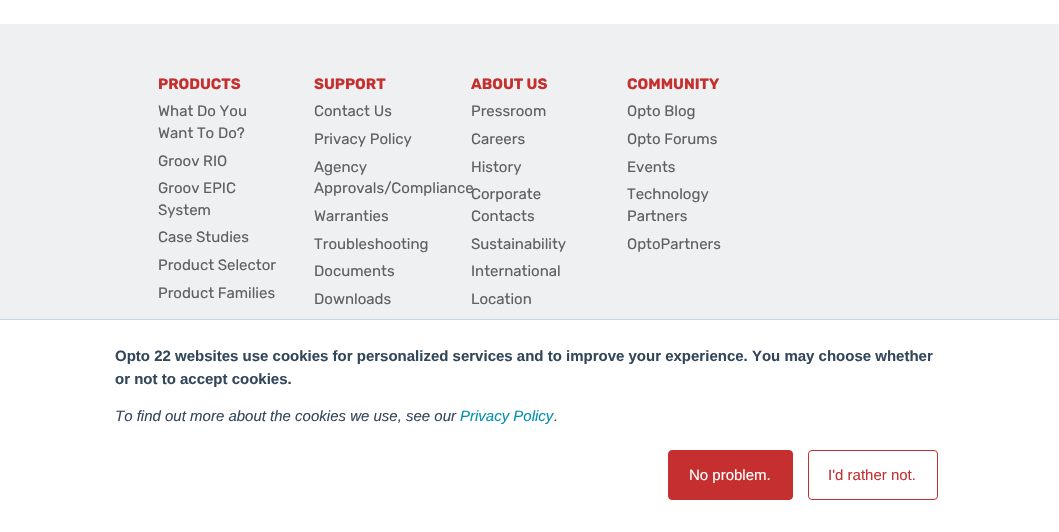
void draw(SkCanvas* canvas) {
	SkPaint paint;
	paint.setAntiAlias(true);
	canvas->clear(0xffffffff);
	paint.setColor(0xffeff0f1);
	canvas->drawRect(SkRect::MakeXYWH(0, 24, 1059, 295), paint);
	SkFont f1(fontMgr->matchFamilyStyle("Rubik", SkFontStyle::Bold()), 15);
	f1.setSubpixel(true);
	paint.setColor(0xffc52f2e);
	canvas->drawString("PRODUCTS", 158, 89, f1, paint);
	SkFont f2(fontMgr->matchFamilyStyle("Rubik", SkFontStyle::Normal()), 15);
	f2.setSubpixel(true);
	paint.setColor(0xff606060);
	canvas->drawString("What Do You", 158, 116, f2, paint);
	canvas->drawString("Want To Do?", 158, 138, f2, paint);
	canvas->drawString("Groov RIO", 158, 166, f2, paint);
	canvas->drawString("Groov EPIC", 158, 193, f2, paint);
	canvas->drawString("System", 158, 215, f2, paint);
	canvas->drawString("Case Studies", 158, 242, f2, paint);
	canvas->drawString("Product Selector", 158, 270, f2, paint);
	canvas->drawString("Product Families", 158, 298, f2, paint);
	paint.setColor(0xffc52f2e);
	canvas->drawString("SUPPORT", 314, 89, f1, paint);
	paint.setColor(0xff606060);
	canvas->drawString("Contact Us", 314, 116, f2, paint);
	canvas->drawString("Privacy Policy", 314, 144, f2, paint);
	canvas->drawString("Agency", 314, 172, f2, paint);
	canvas->drawString("Approvals/Compliance", 314, 193, f2, paint);
	canvas->drawString("Warranties", 314, 221, f2, paint);
	canvas->drawString("Troubleshooting", 314, 249, f2, paint);
	canvas->drawString("Documents", 314, 276, f2, paint);
	canvas->drawString("Downloads", 314, 304, f2, paint);
	paint.setColor(0xffc52f2e);
	canvas->drawString("ABOUT US", 471, 89, f1, paint);
	paint.setColor(0xff606060);
	canvas->drawString("Pressroom", 471, 116, f2, paint);
	canvas->drawString("Careers", 471, 144, f2, paint);
	canvas->drawString("History", 471, 172, f2, paint);
	canvas->drawString("Corporate", 471, 199, f2, paint);
	canvas->drawString("Contacts", 471, 221, f2, paint);
	canvas->drawString("Sustainability", 471, 249, f2, paint);
	canvas->drawString("International", 471, 276, f2, paint);
	canvas->drawString("Location", 471, 304, f2, paint);
	paint.setColor(0xffc52f2e);
	canvas->drawString("COMMUNITY", 627, 89, f1, paint);
	paint.setColor(0xff606060);
	canvas->drawString("Opto Blog", 627, 116, f2, paint);
	canvas->drawString("Opto Forums", 627, 144, f2, paint);
	canvas->drawString("Events", 627, 172, f2, paint);
	canvas->drawString("Technology", 627, 199, f2, paint);
	canvas->drawString("Partners", 627, 221, f2, paint);
	canvas->drawString("OptoPartners", 627, 249, f2, paint);
	paint.setColor(0xffeaf0f6);
	paint.setMaskFilter(SkMaskFilter::MakeBlur(kNormal_SkBlurStyle, 2));
	canvas->drawRect(SkRect::MakeXYWH(0, 318, 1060, 213), paint);
	paint.setMaskFilter(nullptr);
	paint.setColor(0xffffffff);
	canvas->drawRect(SkRect::MakeXYWH(0, 320, 1059, 212), paint);
	paint.setColor(0xffcbd6e2);
	canvas->drawRect(SkRect::MakeXYWH(0, 319, 1059, 1), paint);
	SkFont f3(fontMgr->matchFamilyStyle("Liberation Sans", SkFontStyle::Bold()), 15);
	f3.setSubpixel(true);
	paint.setColor(0xff33475b);
	canvas->drawString("Opto 22 websites use cookies for personalized services and to improve your experience. You may choose whether", 115, 361, f3, paint);
	canvas->drawString("or not to accept cookies.", 115, 384, f3, paint);
	SkFont f4(fontMgr->matchFamilyStyle("Liberation Sans", SkFontStyle::Italic()), 15);
	f4.setSubpixel(true);
	canvas->drawString("To find out more about the cookies we use, see our", 115, 421, f4, paint);
	paint.setColor(0xff0091ae);
	canvas->drawString("Privacy Policy", 460, 421, f4, paint);
	paint.setColor(0xff33475b);
	canvas->drawString(".", 554, 421, f4, paint);
	paint.setColor(0xffc52f2f);
	canvas->drawRoundRect(SkRect::MakeXYWH(668.5, 450.5, 124, 49), 3.5, 3.5, paint);
	paint.setStroke(true);
	paint.setStrokeWidth(1);
	canvas->drawRoundRect(SkRect::MakeXYWH(668.5, 450.5, 124, 49), 3.5, 3.5, paint);
	SkFont f5(fontMgr->matchFamilyStyle("Liberation Sans", SkFontStyle::Normal()), 15);
	f5.setSubpixel(true);
	paint.setStroke(false);
	paint.setColor(0xffffffff);
	canvas->drawString("No problem.", 689, 480, f5, paint);
	paint.setStroke(true);
	paint.setColor(0xffc52f2f);
	canvas->drawRoundRect(SkRect::MakeXYWH(808.5, 450.5, 129, 49), 3.5, 3.5, paint);
	paint.setStroke(false);
	paint.setColor(0xffc52f2e);
	canvas->drawString("I'd rather not.", 828, 480, f5, paint);
}
